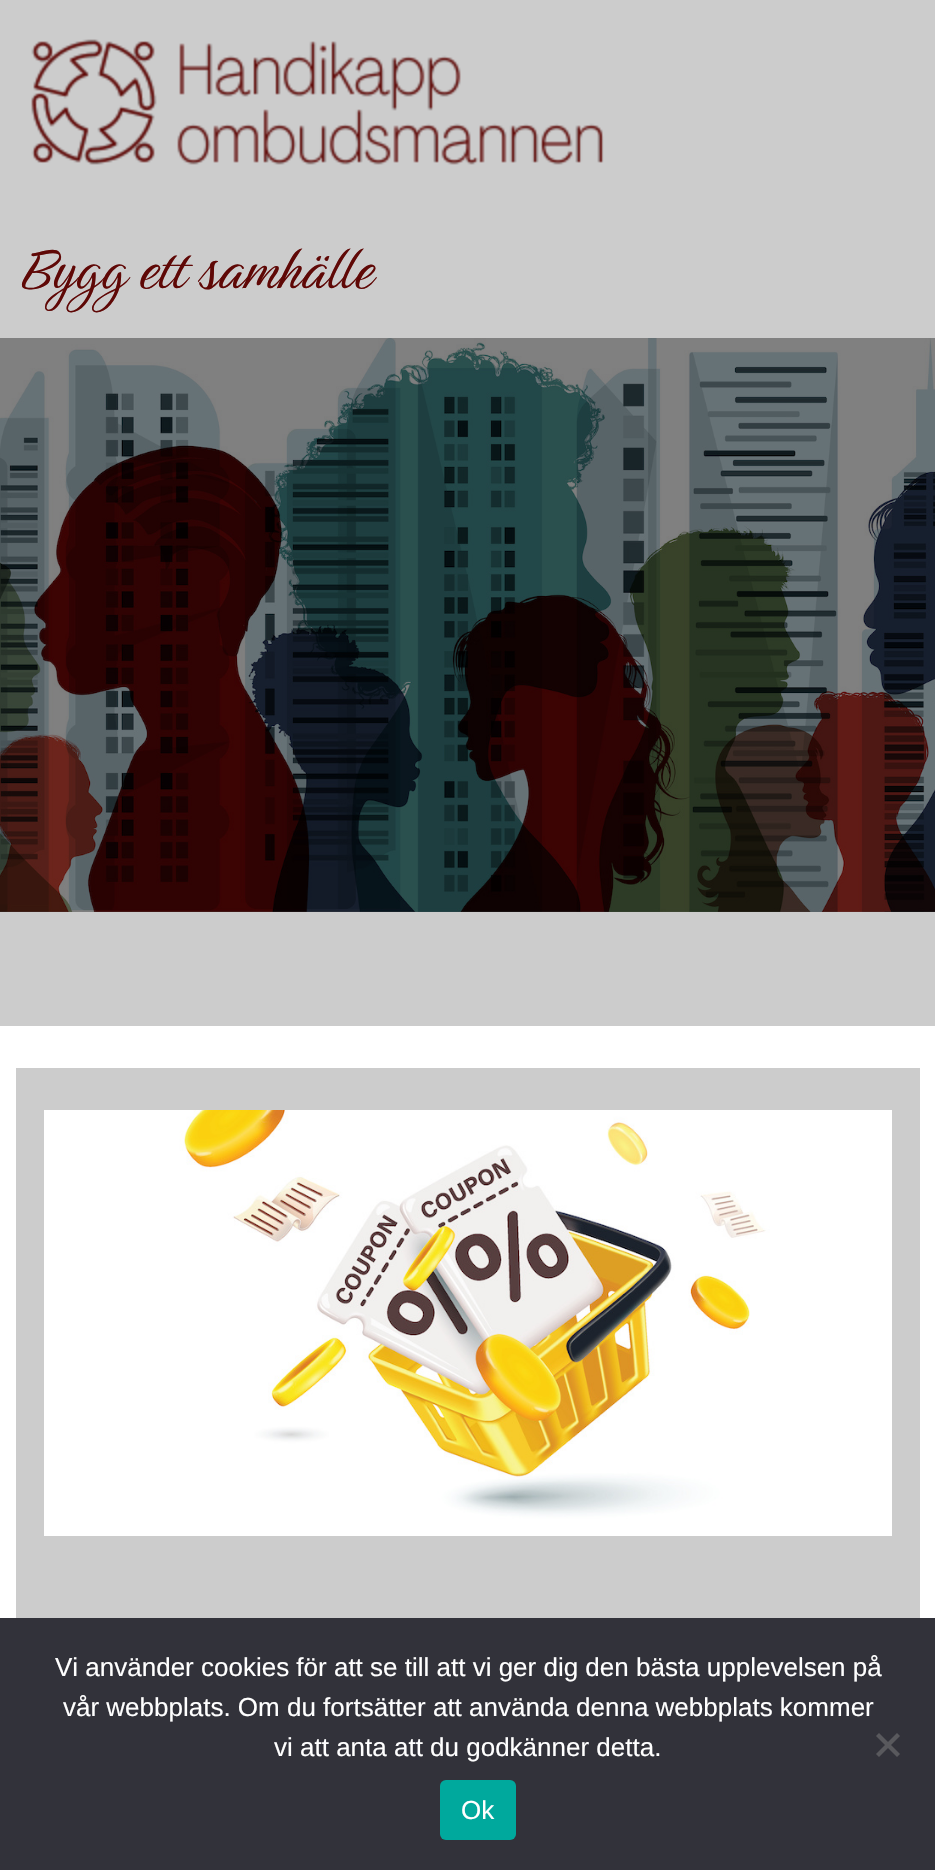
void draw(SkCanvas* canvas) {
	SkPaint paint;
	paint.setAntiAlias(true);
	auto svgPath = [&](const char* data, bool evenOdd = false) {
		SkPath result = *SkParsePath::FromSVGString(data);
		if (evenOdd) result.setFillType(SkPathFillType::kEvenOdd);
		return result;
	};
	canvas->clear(0xffffffff);
	paint.setColor(0xffcccccc);
	canvas->drawRect(SkRect::MakeXYWH(0, 0, 935, 338), paint);
	canvas->drawImageRect(SkImages::DeferredFromEncodedData(SkData::MakeFromFileName("img1.png")), SkRect::MakeXYWH(31, 39, 573, 126), SkSamplingOptions());
	SkFont f1(fontMgr->matchFamilyStyle("Birthstone", SkFontStyle::Normal()), 70);
	f1.setSubpixel(true);
	paint.setColor(0xff5f0806);
	canvas->drawString("Bygg ett samhälle", 20, 288, f1, paint);
	canvas->drawImageRect(SkImages::DeferredFromEncodedData(SkData::MakeFromFileName("img2.png")), SkRect::MakeXYWH(0, 338, 935, 574), SkSamplingOptions());
	paint.setColor(0xffcccccc);
	canvas->drawRect(SkRect::MakeXYWH(0, 912, 935, 114), paint);
	canvas->drawRect(SkRect::MakeXYWH(16, 1068, 904, 550), paint);
	canvas->drawImageRect(SkImages::DeferredFromEncodedData(SkData::MakeFromFileName("img3.png")), SkRect::MakeXYWH(44, 1110, 848, 426), SkSamplingOptions());
	paint.setColor(0xff32323a);
	canvas->drawRect(SkRect::MakeXYWH(0, 1618, 935, 252), paint);
	SkFont f2(fontMgr->matchFamilyStyle("Liberation Sans", SkFontStyle::Normal()), 26);
	f2.setSubpixel(true);
	paint.setColor(0xffffffff);
	canvas->drawString("Vi använder cookies för att se till att vi ger dig den bästa upplevelsen på", 55, 1676, f2, paint);
	canvas->drawString("vår webbplats. Om du fortsätter att använda denna webbplats kommer", 63, 1716, f2, paint);
	canvas->drawString("vi att anta att du godkänner detta.", 274, 1756, f2, paint);
	paint.setColor(0xff59595d);
	canvas->drawPath(svgPath("M897 1733L900 1736L879 1757L876 1754Z"), paint);
	canvas->drawPath(svgPath("M876 1736L879 1733L900 1754L897 1757Z"), paint);
	paint.setColor(0xff00a99d);
	canvas->drawRoundRect(SkRect::MakeXYWH(440, 1780, 76, 60), 6, 6, paint);
	paint.setColor(0xffffffff);
	canvas->drawString("Ok", 461, 1819, f2, paint);
}
